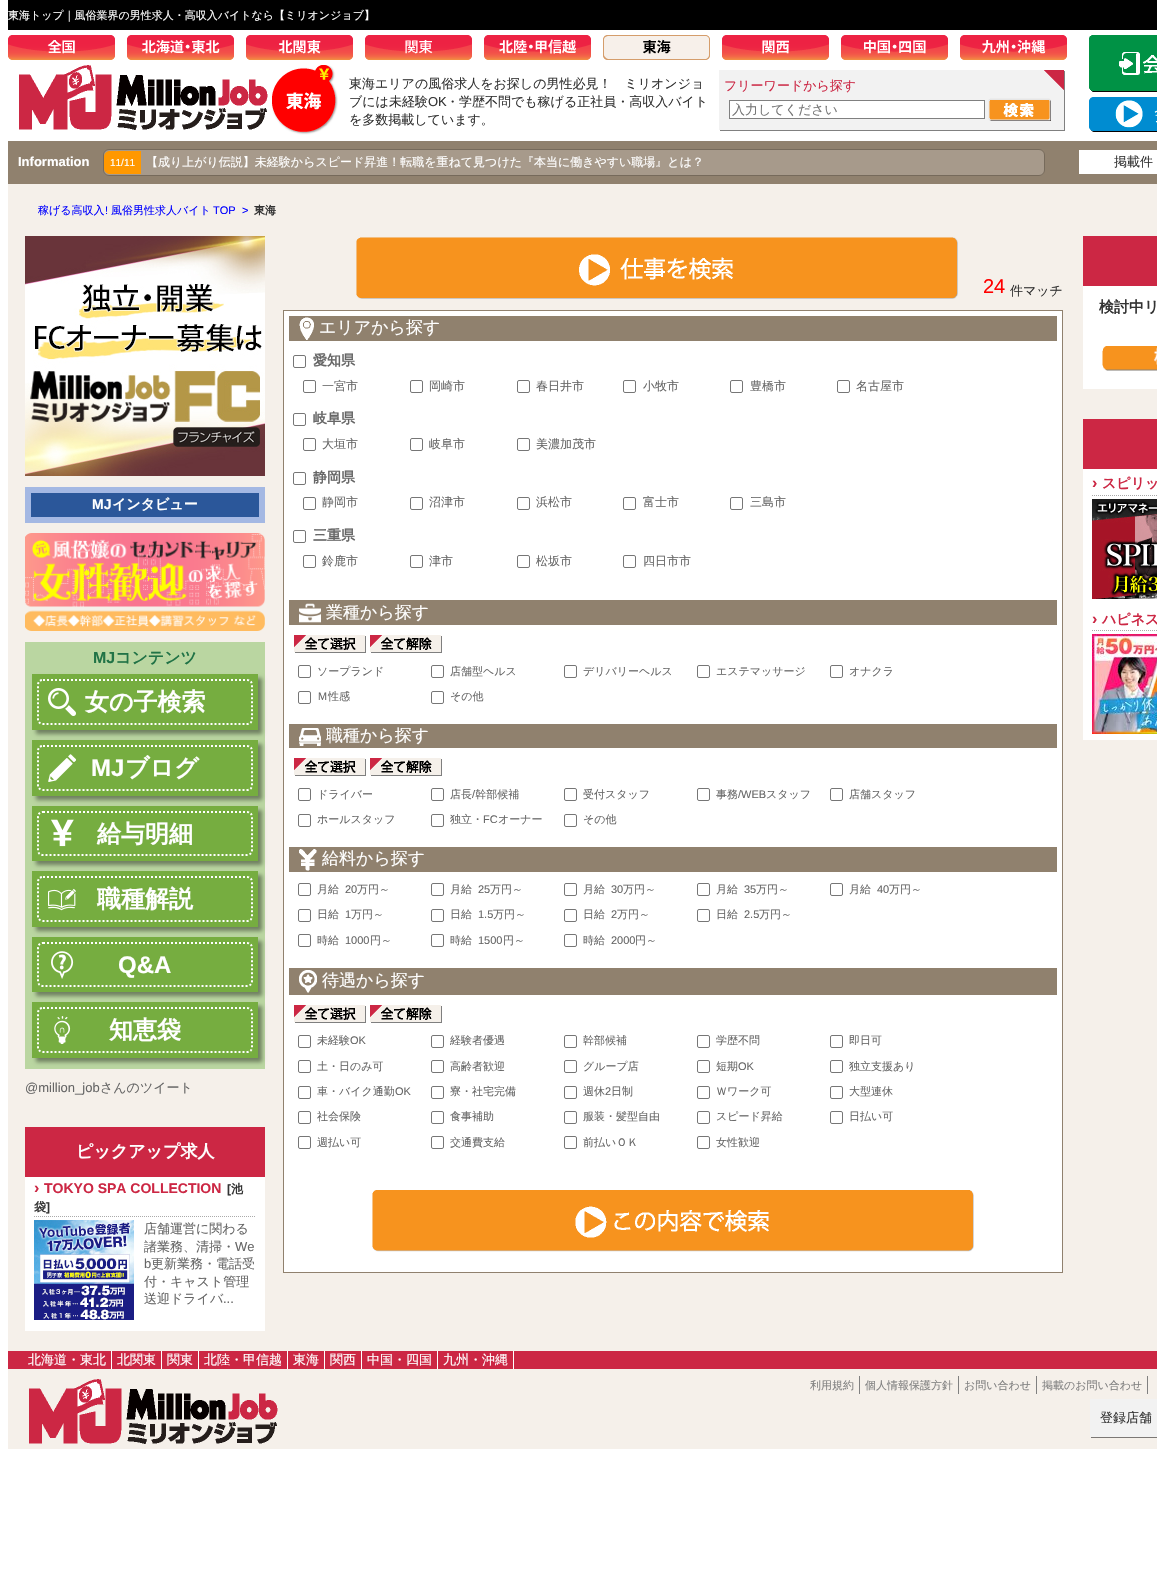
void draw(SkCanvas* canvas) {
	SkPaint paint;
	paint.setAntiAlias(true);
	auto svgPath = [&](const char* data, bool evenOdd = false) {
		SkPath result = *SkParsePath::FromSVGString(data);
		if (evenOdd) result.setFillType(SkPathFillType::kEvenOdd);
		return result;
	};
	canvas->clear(0xffffffff);
	paint.setColor(0xff000000);
	canvas->drawRect(SkRect::MakeXYWH(8, 0, 1149, 30), paint);
	SkFont f1(fontMgr->matchFamilyStyle("WenQuanYi Zen Hei", SkFontStyle(500, SkFontStyle::kNormal_Width, SkFontStyle::kUpright_Slant)), 11);
	f1.setSubpixel(true);
	paint.setColor(0xffffffff);
	canvas->drawString("東海トップ｜風俗業界の男性求人・高収入バイトなら【ミリオンジョブ】", 8, 19, f1, paint);
	canvas->drawImageRect(SkImages::DeferredFromEncodedData(SkData::MakeFromFileName("img1.png")), SkRect::MakeXYWH(8, 35, 107, 25), SkSamplingOptions());
	canvas->drawImageRect(SkImages::DeferredFromEncodedData(SkData::MakeFromFileName("img2.png")), SkRect::MakeXYWH(127, 35, 107, 25), SkSamplingOptions());
	canvas->drawImageRect(SkImages::DeferredFromEncodedData(SkData::MakeFromFileName("img3.png")), SkRect::MakeXYWH(246, 35, 107, 25), SkSamplingOptions());
	canvas->drawImageRect(SkImages::DeferredFromEncodedData(SkData::MakeFromFileName("img4.png")), SkRect::MakeXYWH(365, 35, 107, 25), SkSamplingOptions());
	canvas->drawImageRect(SkImages::DeferredFromEncodedData(SkData::MakeFromFileName("img5.png")), SkRect::MakeXYWH(484, 35, 107, 25), SkSamplingOptions());
	canvas->drawImageRect(SkImages::DeferredFromEncodedData(SkData::MakeFromFileName("img6.png")), SkRect::MakeXYWH(603, 35, 107, 25), SkSamplingOptions());
	canvas->drawImageRect(SkImages::DeferredFromEncodedData(SkData::MakeFromFileName("img7.png")), SkRect::MakeXYWH(722, 35, 107, 25), SkSamplingOptions());
	canvas->drawImageRect(SkImages::DeferredFromEncodedData(SkData::MakeFromFileName("img8.png")), SkRect::MakeXYWH(841, 35, 107, 25), SkSamplingOptions());
	canvas->drawImageRect(SkImages::DeferredFromEncodedData(SkData::MakeFromFileName("img9.png")), SkRect::MakeXYWH(960, 35, 107, 25), SkSamplingOptions());
	canvas->drawImageRect(SkImages::DeferredFromEncodedData(SkData::MakeFromFileName("img10.png")), SkRect::MakeXYWH(19, 65, 249, 65), SkSamplingOptions());
	canvas->drawImageRect(SkImages::DeferredFromEncodedData(SkData::MakeFromFileName("img11.png")), SkRect::MakeXYWH(272, 65, 66, 70), SkSamplingOptions());
	SkFont f2(fontMgr->matchFamilyStyle("WenQuanYi Zen Hei", SkFontStyle(500, SkFontStyle::kNormal_Width, SkFontStyle::kUpright_Slant)), 13);
	f2.setSubpixel(true);
	paint.setColor(0xff333333);
	canvas->drawString("東海エリアの風俗求人をお探しの男性必見！　ミリオンジョ", 349, 88, f2, paint);
	canvas->drawString("ブには未経験", 349, 106, f2, paint);
	SkFont f3(fontMgr->matchFamilyStyle("Liberation Sans", SkFontStyle::Normal()), 13);
	f3.setSubpixel(true);
	canvas->drawString("OK", 428, 106, f3, paint);
	canvas->drawString("・学歴不問でも稼げる正社員・高収入バイト", 446, 106, f2, paint);
	canvas->drawString("を多数掲載しています。", 349, 124, f2, paint);
	paint.setColor(0xff808080);
	canvas->drawPath(svgPath("M720 130V131H1065V71H1064V130Z"), paint);
	paint.setColor(0xfff2f2f2);
	canvas->drawRect(SkRect::MakeXYWH(719, 70, 345, 60), paint);
	paint.setColor(0xffcc2744);
	canvas->drawString("フリーワードから探す", 724, 90, f2, paint);
	canvas->drawImageRect(SkImages::DeferredFromEncodedData(SkData::MakeFromFileName("img12.png")), SkRect::MakeXYWH(1044, 70, 20, 20), SkSamplingOptions());
	paint.setColor(0xffffffff);
	canvas->drawRect(SkRect::MakeXYWH(729.5, 100.5, 255, 18), paint);
	paint.setStroke(true);
	paint.setStrokeWidth(1);
	paint.setColor(0xff808080);
	canvas->drawRect(SkRect::MakeXYWH(729.5, 100.5, 255, 18), paint);
	paint.setStroke(false);
	paint.setColor(0xff757575);
	canvas->drawString("入力してください", 732, 114, f2, paint);
	canvas->drawImageRect(SkImages::DeferredFromEncodedData(SkData::MakeFromFileName("img13.png")), SkRect::MakeXYWH(988, 98, 63, 23), SkSamplingOptions());
	canvas->drawImageRect(SkImages::DeferredFromEncodedData(SkData::MakeFromFileName("img14.png")), SkRect::MakeXYWH(1089, 35, 68, 57), SkSamplingOptions());
	canvas->drawImageRect(SkImages::DeferredFromEncodedData(SkData::MakeFromFileName("img15.png")), SkRect::MakeXYWH(1089, 97, 68, 35), SkSamplingOptions());
	paint.setColor(0xff90816e);
	canvas->drawRect(SkRect::MakeXYWH(8, 141, 1149, 43), paint);
	SkFont f4(fontMgr->matchFamilyStyle("Liberation Sans", SkFontStyle::Bold()), 13);
	f4.setSubpixel(true);
	paint.setColor(0xffffffff);
	canvas->drawString("Information", 18, 166, f4, paint);
	paint.setColor(0xffa79a8b);
	canvas->drawRoundRect(SkRect::MakeXYWH(103.5, 149.5, 941, 26), 5.5, 5.5, paint);
	paint.setStroke(true);
	paint.setColor(0xff766a5b);
	canvas->drawRoundRect(SkRect::MakeXYWH(103.5, 149.5, 941, 26), 5.5, 5.5, paint);
	paint.setStroke(false);
	paint.setColor(0xffff9800);
	canvas->drawPath(svgPath("M110 151H141V174H110C106.5 174 104 171.5 104 168V157C104 153.5 106.5 151 110 151Z"), paint);
	SkFont f5(fontMgr->matchFamilyStyle("Liberation Sans", SkFontStyle::Normal()), 10);
	f5.setSubpixel(true);
	paint.setColor(0xffffffff);
	canvas->drawString("11/11", 110, 166, f5, paint);
	SkFont f6(fontMgr->matchFamilyStyle("WenQuanYi Zen Hei", SkFontStyle(500, SkFontStyle::kNormal_Width, SkFontStyle::kUpright_Slant)), 12);
	f6.setSubpixel(true);
	canvas->drawString("【成り上がり伝説】未経験からスピード昇進！転職を重ねて見つけた『本当に働きやすい職場』とは？", 146, 166, f6, paint);
	canvas->drawRect(SkRect::MakeXYWH(1079, 150, 78, 24), paint);
	paint.setColor(0xff333333);
	canvas->drawString("掲載件", 1114, 166, f2, paint);
	paint.setColor(0xfff5f0ea);
	canvas->drawRect(SkRect::MakeXYWH(8, 184, 1149, 1167), paint);
	paint.setColor(0xff0000ff);
	canvas->drawString("稼げる高収入", 38, 214, f1, paint);
	SkFont f7(fontMgr->matchFamilyStyle("Liberation Sans", SkFontStyle::Normal()), 11);
	f7.setSubpixel(true);
	canvas->drawString("!", 105, 214, f7, paint);
	canvas->drawString("風俗男性求人バイト", 111, 214, f1, paint);
	canvas->drawString("TOP", 213, 214, f7, paint);
	canvas->drawString(">", 242, 214, f7, paint);
	SkFont f8(fontMgr->matchFamilyStyle("WenQuanYi Zen Hei", SkFontStyle::Bold()), 11);
	f8.setSubpixel(true);
	paint.setColor(0xff333333);
	canvas->drawString("東海", 254, 214, f8, paint);
	canvas->drawImageRect(SkImages::DeferredFromEncodedData(SkData::MakeFromFileName("img16.png")), SkRect::MakeXYWH(25, 236, 240, 240), SkSamplingOptions());
	paint.setColor(0xffa4b8e3);
	canvas->drawRect(SkRect::MakeXYWH(25, 487, 240, 36), paint);
	paint.setColor(0xff2b579a);
	canvas->drawRect(SkRect::MakeXYWH(31, 493, 228, 24), paint);
	SkFont f9(fontMgr->matchFamilyStyle("Liberation Sans", SkFontStyle::Bold()), 14);
	f9.setSubpixel(true);
	paint.setColor(0xffffffff);
	canvas->drawString("MJ", 92, 509, f9, paint);
	SkFont f10(fontMgr->matchFamilyStyle("WenQuanYi Zen Hei", SkFontStyle::Bold()), 14);
	f10.setSubpixel(true);
	canvas->drawString("インタビュー", 112, 509, f10, paint);
	canvas->drawImageRect(SkImages::DeferredFromEncodedData(SkData::MakeFromFileName("img17.png")), SkRect::MakeXYWH(25, 533, 240, 98), SkSamplingOptions());
	paint.setColor(0xffbad6a1);
	canvas->drawRect(SkRect::MakeXYWH(25, 642, 240, 427), paint);
	SkFont f11(fontMgr->matchFamilyStyle("Liberation Sans", SkFontStyle::Bold()), 16);
	f11.setSubpixel(true);
	paint.setColor(0xff217346);
	canvas->drawString("MJ", 93, 663, f11, paint);
	SkFont f12(fontMgr->matchFamilyStyle("WenQuanYi Zen Hei", SkFontStyle::Bold()), 16);
	f12.setSubpixel(true);
	canvas->drawString("コンテンツ", 115, 663, f12, paint);
	paint.setColor(0x66000000);
	paint.setMaskFilter(SkMaskFilter::MakeBlur(kNormal_SkBlurStyle, 2));
	canvas->drawRect(SkRect::MakeXYWH(36, 678, 226, 56), paint);
	paint.setMaskFilter(nullptr);
	paint.setColor(0xff76ad40);
	canvas->drawRect(SkRect::MakeXYWH(32, 674, 226, 56), paint);
	canvas->drawImageRect(SkImages::DeferredFromEncodedData(SkData::MakeFromFileName("img18.png")), SkRect::MakeXYWH(48, 688, 28, 28), SkSamplingOptions());
	paint.setStroke(true);
	paint.setStrokeWidth(2);
	paint.setColor(0xffffffff);
	paint.setPathEffect(SkDashPathEffect::Make({{2, 2}}, 0));
	canvas->drawPath(svgPath("M43 680H247C250 680 252 682 252 685V719C252 722 250 724 247 724H43C40 724 38 722 38 719V685C38 682 40 680 43 680Z"), paint);
	paint.setPathEffect(nullptr);
	SkFont f13(fontMgr->matchFamilyStyle("WenQuanYi Zen Hei", SkFontStyle::Bold()), 24);
	f13.setSubpixel(true);
	paint.setStroke(false);
	canvas->drawString("女の子検索", 85, 710, f13, paint);
	paint.setColor(0x66000000);
	paint.setMaskFilter(SkMaskFilter::MakeBlur(kNormal_SkBlurStyle, 2));
	canvas->drawRect(SkRect::MakeXYWH(36, 744, 226, 56), paint);
	paint.setMaskFilter(nullptr);
	paint.setColor(0xff76ad40);
	canvas->drawRect(SkRect::MakeXYWH(32, 740, 226, 56), paint);
	canvas->drawImageRect(SkImages::DeferredFromEncodedData(SkData::MakeFromFileName("img19.png")), SkRect::MakeXYWH(48, 754, 28, 28), SkSamplingOptions());
	paint.setStroke(true);
	paint.setColor(0xffffffff);
	paint.setPathEffect(SkDashPathEffect::Make({{2, 2}}, 0));
	canvas->drawPath(svgPath("M43 746H247C250 746 252 748 252 751V785C252 788 250 790 247 790H43C40 790 38 788 38 785V751C38 748 40 746 43 746Z"), paint);
	paint.setPathEffect(nullptr);
	SkFont f14(fontMgr->matchFamilyStyle("Liberation Sans", SkFontStyle::Bold()), 24);
	f14.setSubpixel(true);
	paint.setStroke(false);
	canvas->drawString("MJ", 91, 776, f14, paint);
	canvas->drawString("ブログ", 125, 776, f13, paint);
	paint.setColor(0x66000000);
	paint.setMaskFilter(SkMaskFilter::MakeBlur(kNormal_SkBlurStyle, 2));
	canvas->drawRect(SkRect::MakeXYWH(36, 810, 226, 55), paint);
	paint.setMaskFilter(nullptr);
	paint.setColor(0xff76ad40);
	canvas->drawRect(SkRect::MakeXYWH(32, 806, 226, 55), paint);
	canvas->drawImageRect(SkImages::DeferredFromEncodedData(SkData::MakeFromFileName("img20.png")), SkRect::MakeXYWH(51, 819, 23, 28), SkSamplingOptions());
	paint.setStroke(true);
	paint.setColor(0xffffffff);
	paint.setPathEffect(SkDashPathEffect::Make({{2, 2}}, 0));
	canvas->drawPath(svgPath("M43 812H247C250 812 252 814 252 817V850C252 853 250 855 247 855H43C40 855 38 853 38 850V817C38 814 40 812 43 812Z"), paint);
	paint.setPathEffect(nullptr);
	paint.setStroke(false);
	canvas->drawString("給与明細", 97, 842, f13, paint);
	paint.setColor(0x66000000);
	paint.setMaskFilter(SkMaskFilter::MakeBlur(kNormal_SkBlurStyle, 2));
	canvas->drawRect(SkRect::MakeXYWH(36, 875, 226, 56), paint);
	paint.setMaskFilter(nullptr);
	paint.setColor(0xff76ad40);
	canvas->drawRect(SkRect::MakeXYWH(32, 871, 226, 56), paint);
	canvas->drawImageRect(SkImages::DeferredFromEncodedData(SkData::MakeFromFileName("img21.png")), SkRect::MakeXYWH(48, 888, 28, 23), SkSamplingOptions());
	paint.setStroke(true);
	paint.setColor(0xffffffff);
	paint.setPathEffect(SkDashPathEffect::Make({{2, 2}}, 0));
	canvas->drawPath(svgPath("M43 877H247C250 877 252 879 252 882V916C252 919 250 921 247 921H43C40 921 38 919 38 916V882C38 879 40 877 43 877Z"), paint);
	paint.setPathEffect(nullptr);
	paint.setStroke(false);
	canvas->drawString("職種解説", 97, 907, f13, paint);
	paint.setColor(0x66000000);
	paint.setMaskFilter(SkMaskFilter::MakeBlur(kNormal_SkBlurStyle, 2));
	canvas->drawRect(SkRect::MakeXYWH(36, 941, 226, 55), paint);
	paint.setMaskFilter(nullptr);
	paint.setColor(0xff76ad40);
	canvas->drawRect(SkRect::MakeXYWH(32, 937, 226, 55), paint);
	canvas->drawImageRect(SkImages::DeferredFromEncodedData(SkData::MakeFromFileName("img22.png")), SkRect::MakeXYWH(51, 951, 23, 28), SkSamplingOptions());
	paint.setStroke(true);
	paint.setColor(0xffffffff);
	paint.setPathEffect(SkDashPathEffect::Make({{2, 2}}, 0));
	canvas->drawPath(svgPath("M43 943H247C250 943 252 945 252 948V981C252 984 250 986 247 986H43C40 986 38 984 38 981V948C38 945 40 943 43 943Z"), paint);
	paint.setPathEffect(nullptr);
	paint.setStroke(false);
	canvas->drawString("Q&A", 118, 973, f14, paint);
	paint.setColor(0x66000000);
	paint.setMaskFilter(SkMaskFilter::MakeBlur(kNormal_SkBlurStyle, 2));
	canvas->drawRect(SkRect::MakeXYWH(36, 1006, 226, 56), paint);
	paint.setMaskFilter(nullptr);
	paint.setColor(0xff76ad40);
	canvas->drawRect(SkRect::MakeXYWH(32, 1002, 226, 56), paint);
	canvas->drawImageRect(SkImages::DeferredFromEncodedData(SkData::MakeFromFileName("img23.png")), SkRect::MakeXYWH(54, 1016, 17, 28), SkSamplingOptions());
	paint.setStroke(true);
	paint.setColor(0xffffffff);
	paint.setPathEffect(SkDashPathEffect::Make({{2, 2}}, 0));
	canvas->drawPath(svgPath("M43 1008H247C250 1008 252 1010 252 1013V1047C252 1050 250 1052 247 1052H43C40 1052 38 1050 38 1047V1013C38 1010 40 1008 43 1008Z"), paint);
	paint.setPathEffect(nullptr);
	paint.setStroke(false);
	canvas->drawString("知恵袋", 109, 1038, f13, paint);
	paint.setColor(0xff666666);
	canvas->drawString("@million_job", 25, 1092, f3, paint);
	canvas->drawString("さんのツイート", 100, 1092, f2, paint);
	paint.setColor(0xffffffff);
	canvas->drawRect(SkRect::MakeXYWH(25, 1177, 240, 154), paint);
	paint.setColor(0xffcc2744);
	canvas->drawRect(SkRect::MakeXYWH(25, 1127, 240, 50), paint);
	SkFont f15(fontMgr->matchFamilyStyle("WenQuanYi Zen Hei", SkFontStyle::Bold()), 17);
	f15.setSubpixel(true);
	paint.setColor(0xffffffff);
	canvas->drawString("ピックアップ求人", 76, 1157, f15, paint);
	paint.setStroke(true);
	paint.setStrokeWidth(1);
	paint.setColor(0xffaaaaaa);
	paint.setPathEffect(SkDashPathEffect::Make({{1, 1}}, 0));
	canvas->drawPath(svgPath("M34 1216.5H256"), paint);
	paint.setPathEffect(nullptr);
	paint.setStroke(false);
	paint.setColor(0xffcc2744);
	canvas->drawString("›", 34, 1193, f11, paint);
	canvas->drawString("TOKYO SPA COLLECTION", 44, 1193, f9, paint);
	SkFont f16(fontMgr->matchFamilyStyle("Liberation Sans", SkFontStyle::Bold()), 12);
	f16.setSubpixel(true);
	paint.setColor(0xff333333);
	canvas->drawString("[", 227, 1193, f16, paint);
	SkFont f17(fontMgr->matchFamilyStyle("WenQuanYi Zen Hei", SkFontStyle::Bold()), 12);
	f17.setSubpixel(true);
	canvas->drawString("池", 231, 1193, f17, paint);
	canvas->drawString("袋", 34, 1211, f17, paint);
	canvas->drawString("]", 46, 1211, f16, paint);
	canvas->drawImageRect(SkImages::DeferredFromEncodedData(SkData::MakeFromFileName("img24.png")), SkRect::MakeXYWH(34, 1220, 100, 100), SkSamplingOptions());
	paint.setColor(0xff666666);
	canvas->drawString("店舗運営に関わる", 144, 1233, f2, paint);
	canvas->drawString("諸業務、清掃・", 144, 1251, f2, paint);
	canvas->drawString("We", 235, 1251, f3, paint);
	canvas->drawString("b", 144, 1268, f3, paint);
	canvas->drawString("更新業務・電話受", 151, 1268, f2, paint);
	canvas->drawString("付・キャスト管理", 144, 1286, f2, paint);
	canvas->drawString("送迎ドライバ", 144, 1303, f2, paint);
	canvas->drawString("...", 223, 1303, f3, paint);
	canvas->drawImageRect(SkImages::DeferredFromEncodedData(SkData::MakeFromFileName("img25.png")), SkRect::MakeXYWH(356, 237, 602, 62), SkSamplingOptions());
	SkFont f18(fontMgr->matchFamilyStyle("Liberation Sans", SkFontStyle::Normal()), 20);
	f18.setSubpixel(true);
	paint.setColor(0xffff0000);
	canvas->drawString("24", 983, 293, f18, paint);
	paint.setColor(0xff333333);
	canvas->drawString("件マッチ", 1010, 295, f2, paint);
	paint.setColor(0xffffffff);
	canvas->drawRect(SkRect::MakeXYWH(283.5, 310.5, 779, 962), paint);
	paint.setStroke(true);
	paint.setColor(0xff90816e);
	canvas->drawRect(SkRect::MakeXYWH(283.5, 310.5, 779, 962), paint);
	paint.setStroke(false);
	canvas->drawRect(SkRect::MakeXYWH(289, 316, 768, 25), paint);
	canvas->drawImageRect(SkImages::DeferredFromEncodedData(SkData::MakeFromFileName("img26.png")), SkRect::MakeXYWH(299, 317, 15, 23), SkSamplingOptions());
	SkFont f19(fontMgr->matchFamilyStyle("WenQuanYi Zen Hei", SkFontStyle(500, SkFontStyle::kNormal_Width, SkFontStyle::kUpright_Slant)), 17);
	f19.setSubpixel(true);
	paint.setColor(0xffffffff);
	canvas->drawString("エリアから探す", 319, 333, f19, paint);
	paint.setStroke(true);
	paint.setColor(0xff767676);
	canvas->drawRoundRect(SkRect::MakeXYWH(293.5, 355.5, 12, 12), 1.5, 1.5, paint);
	paint.setStroke(false);
	paint.setColor(0xff666666);
	canvas->drawString("愛知県", 313, 365, f10, paint);
	paint.setStroke(true);
	paint.setColor(0xff767676);
	canvas->drawRoundRect(SkRect::MakeXYWH(303.5, 380.5, 12, 12), 1.5, 1.5, paint);
	paint.setStroke(false);
	paint.setColor(0xff666666);
	canvas->drawString("一宮市", 322, 390, f6, paint);
	paint.setStroke(true);
	paint.setColor(0xff767676);
	canvas->drawRoundRect(SkRect::MakeXYWH(410.5, 380.5, 12, 12), 1.5, 1.5, paint);
	paint.setStroke(false);
	paint.setColor(0xff666666);
	canvas->drawString("岡崎市", 429, 390, f6, paint);
	paint.setStroke(true);
	paint.setColor(0xff767676);
	canvas->drawRoundRect(SkRect::MakeXYWH(517.5, 380.5, 12, 12), 1.5, 1.5, paint);
	paint.setStroke(false);
	paint.setColor(0xff666666);
	canvas->drawString("春日井市", 536, 390, f6, paint);
	paint.setStroke(true);
	paint.setColor(0xff767676);
	canvas->drawRoundRect(SkRect::MakeXYWH(623.5, 380.5, 12, 12), 1.5, 1.5, paint);
	paint.setStroke(false);
	paint.setColor(0xff666666);
	canvas->drawString("小牧市", 643, 390, f6, paint);
	paint.setStroke(true);
	paint.setColor(0xff767676);
	canvas->drawRoundRect(SkRect::MakeXYWH(730.5, 380.5, 12, 12), 1.5, 1.5, paint);
	paint.setStroke(false);
	paint.setColor(0xff666666);
	canvas->drawString("豊橋市", 750, 390, f6, paint);
	paint.setStroke(true);
	paint.setColor(0xff767676);
	canvas->drawRoundRect(SkRect::MakeXYWH(837.5, 380.5, 12, 12), 1.5, 1.5, paint);
	paint.setStroke(false);
	paint.setColor(0xff666666);
	canvas->drawString("名古屋市", 856, 390, f6, paint);
	paint.setStroke(true);
	paint.setColor(0xff767676);
	canvas->drawRoundRect(SkRect::MakeXYWH(293.5, 413.5, 12, 12), 1.5, 1.5, paint);
	paint.setStroke(false);
	paint.setColor(0xff666666);
	canvas->drawString("岐阜県", 313, 423, f10, paint);
	paint.setStroke(true);
	paint.setColor(0xff767676);
	canvas->drawRoundRect(SkRect::MakeXYWH(303.5, 438.5, 12, 12), 1.5, 1.5, paint);
	paint.setStroke(false);
	paint.setColor(0xff666666);
	canvas->drawString("大垣市", 322, 448, f6, paint);
	paint.setStroke(true);
	paint.setColor(0xff767676);
	canvas->drawRoundRect(SkRect::MakeXYWH(410.5, 438.5, 12, 12), 1.5, 1.5, paint);
	paint.setStroke(false);
	paint.setColor(0xff666666);
	canvas->drawString("岐阜市", 429, 448, f6, paint);
	paint.setStroke(true);
	paint.setColor(0xff767676);
	canvas->drawRoundRect(SkRect::MakeXYWH(517.5, 438.5, 12, 12), 1.5, 1.5, paint);
	paint.setStroke(false);
	paint.setColor(0xff666666);
	canvas->drawString("美濃加茂市", 536, 448, f6, paint);
	paint.setStroke(true);
	paint.setColor(0xff767676);
	canvas->drawRoundRect(SkRect::MakeXYWH(293.5, 472.5, 12, 12), 1.5, 1.5, paint);
	paint.setStroke(false);
	paint.setColor(0xff666666);
	canvas->drawString("静岡県", 313, 482, f10, paint);
	paint.setStroke(true);
	paint.setColor(0xff767676);
	canvas->drawRoundRect(SkRect::MakeXYWH(303.5, 497.5, 12, 12), 1.5, 1.5, paint);
	paint.setStroke(false);
	paint.setColor(0xff666666);
	canvas->drawString("静岡市", 322, 506, f6, paint);
	paint.setStroke(true);
	paint.setColor(0xff767676);
	canvas->drawRoundRect(SkRect::MakeXYWH(410.5, 497.5, 12, 12), 1.5, 1.5, paint);
	paint.setStroke(false);
	paint.setColor(0xff666666);
	canvas->drawString("沼津市", 429, 506, f6, paint);
	paint.setStroke(true);
	paint.setColor(0xff767676);
	canvas->drawRoundRect(SkRect::MakeXYWH(517.5, 497.5, 12, 12), 1.5, 1.5, paint);
	paint.setStroke(false);
	paint.setColor(0xff666666);
	canvas->drawString("浜松市", 536, 506, f6, paint);
	paint.setStroke(true);
	paint.setColor(0xff767676);
	canvas->drawRoundRect(SkRect::MakeXYWH(623.5, 497.5, 12, 12), 1.5, 1.5, paint);
	paint.setStroke(false);
	paint.setColor(0xff666666);
	canvas->drawString("富士市", 643, 506, f6, paint);
	paint.setStroke(true);
	paint.setColor(0xff767676);
	canvas->drawRoundRect(SkRect::MakeXYWH(730.5, 497.5, 12, 12), 1.5, 1.5, paint);
	paint.setStroke(false);
	paint.setColor(0xff666666);
	canvas->drawString("三島市", 750, 506, f6, paint);
	paint.setStroke(true);
	paint.setColor(0xff767676);
	canvas->drawRoundRect(SkRect::MakeXYWH(293.5, 530.5, 12, 12), 1.5, 1.5, paint);
	paint.setStroke(false);
	paint.setColor(0xff666666);
	canvas->drawString("三重県", 313, 540, f10, paint);
	paint.setStroke(true);
	paint.setColor(0xff767676);
	canvas->drawRoundRect(SkRect::MakeXYWH(303.5, 555.5, 12, 12), 1.5, 1.5, paint);
	paint.setStroke(false);
	paint.setColor(0xff666666);
	canvas->drawString("鈴鹿市", 322, 565, f6, paint);
	paint.setStroke(true);
	paint.setColor(0xff767676);
	canvas->drawRoundRect(SkRect::MakeXYWH(410.5, 555.5, 12, 12), 1.5, 1.5, paint);
	paint.setStroke(false);
	paint.setColor(0xff666666);
	canvas->drawString("津市", 429, 565, f6, paint);
	paint.setStroke(true);
	paint.setColor(0xff767676);
	canvas->drawRoundRect(SkRect::MakeXYWH(517.5, 555.5, 12, 12), 1.5, 1.5, paint);
	paint.setStroke(false);
	paint.setColor(0xff666666);
	canvas->drawString("松坂市", 536, 565, f6, paint);
	paint.setStroke(true);
	paint.setColor(0xff767676);
	canvas->drawRoundRect(SkRect::MakeXYWH(623.5, 555.5, 12, 12), 1.5, 1.5, paint);
	paint.setStroke(false);
	paint.setColor(0xff666666);
	canvas->drawString("四日市市", 643, 565, f6, paint);
	paint.setColor(0xff90816e);
	canvas->drawRect(SkRect::MakeXYWH(289, 600, 768, 25), paint);
	canvas->drawImageRect(SkImages::DeferredFromEncodedData(SkData::MakeFromFileName("img27.png")), SkRect::MakeXYWH(299, 603, 22, 20), SkSamplingOptions());
	paint.setColor(0xffffffff);
	canvas->drawString("業種から探す", 326, 618, f19, paint);
	canvas->drawImageRect(SkImages::DeferredFromEncodedData(SkData::MakeFromFileName("img28.png")), SkRect::MakeXYWH(294, 635, 72, 18), SkSamplingOptions());
	canvas->drawImageRect(SkImages::DeferredFromEncodedData(SkData::MakeFromFileName("img29.png")), SkRect::MakeXYWH(370, 635, 72, 18), SkSamplingOptions());
	paint.setStroke(true);
	paint.setColor(0xff767676);
	canvas->drawRoundRect(SkRect::MakeXYWH(298.5, 665.5, 12, 12), 1.5, 1.5, paint);
	paint.setStroke(false);
	paint.setColor(0xff666666);
	canvas->drawString("ソープランド", 317, 675, f1, paint);
	paint.setStroke(true);
	paint.setColor(0xff767676);
	canvas->drawRoundRect(SkRect::MakeXYWH(431.5, 665.5, 12, 12), 1.5, 1.5, paint);
	paint.setStroke(false);
	paint.setColor(0xff666666);
	canvas->drawString("店舗型ヘルス", 450, 675, f1, paint);
	paint.setStroke(true);
	paint.setColor(0xff767676);
	canvas->drawRoundRect(SkRect::MakeXYWH(564.5, 665.5, 12, 12), 1.5, 1.5, paint);
	paint.setStroke(false);
	paint.setColor(0xff666666);
	canvas->drawString("デリバリーヘルス", 583, 675, f1, paint);
	paint.setStroke(true);
	paint.setColor(0xff767676);
	canvas->drawRoundRect(SkRect::MakeXYWH(697.5, 665.5, 12, 12), 1.5, 1.5, paint);
	paint.setStroke(false);
	paint.setColor(0xff666666);
	canvas->drawString("エステマッサージ", 716, 675, f1, paint);
	paint.setStroke(true);
	paint.setColor(0xff767676);
	canvas->drawRoundRect(SkRect::MakeXYWH(830.5, 665.5, 12, 12), 1.5, 1.5, paint);
	paint.setStroke(false);
	paint.setColor(0xff666666);
	canvas->drawString("オナクラ", 849, 675, f1, paint);
	paint.setStroke(true);
	paint.setColor(0xff767676);
	canvas->drawRoundRect(SkRect::MakeXYWH(298.5, 691.5, 12, 12), 1.5, 1.5, paint);
	paint.setStroke(false);
	paint.setColor(0xff666666);
	canvas->drawString("Ｍ性感", 317, 700, f1, paint);
	paint.setStroke(true);
	paint.setColor(0xff767676);
	canvas->drawRoundRect(SkRect::MakeXYWH(431.5, 691.5, 12, 12), 1.5, 1.5, paint);
	paint.setStroke(false);
	paint.setColor(0xff666666);
	canvas->drawString("その他", 450, 700, f1, paint);
	paint.setColor(0xff90816e);
	canvas->drawRect(SkRect::MakeXYWH(289, 724, 768, 24), paint);
	canvas->drawImageRect(SkImages::DeferredFromEncodedData(SkData::MakeFromFileName("img30.png")), SkRect::MakeXYWH(299, 728, 22, 18), SkSamplingOptions());
	paint.setColor(0xffffffff);
	canvas->drawString("職種から探す", 326, 741, f19, paint);
	canvas->drawImageRect(SkImages::DeferredFromEncodedData(SkData::MakeFromFileName("img28.png")), SkRect::MakeXYWH(294, 758, 72, 18), SkSamplingOptions());
	canvas->drawImageRect(SkImages::DeferredFromEncodedData(SkData::MakeFromFileName("img29.png")), SkRect::MakeXYWH(370, 758, 72, 18), SkSamplingOptions());
	paint.setStroke(true);
	paint.setColor(0xff767676);
	canvas->drawRoundRect(SkRect::MakeXYWH(298.5, 788.5, 12, 12), 1.5, 1.5, paint);
	paint.setStroke(false);
	paint.setColor(0xff666666);
	canvas->drawString("ドライバー", 317, 798, f1, paint);
	paint.setStroke(true);
	paint.setColor(0xff767676);
	canvas->drawRoundRect(SkRect::MakeXYWH(431.5, 788.5, 12, 12), 1.5, 1.5, paint);
	paint.setStroke(false);
	paint.setColor(0xff666666);
	canvas->drawString("店長 幹部候補", 450, 798, f1, paint);
	canvas->drawString("/", 472, 798, f7, paint);
	paint.setStroke(true);
	paint.setColor(0xff767676);
	canvas->drawRoundRect(SkRect::MakeXYWH(564.5, 788.5, 12, 12), 1.5, 1.5, paint);
	paint.setStroke(false);
	paint.setColor(0xff666666);
	canvas->drawString("受付スタッフ", 583, 798, f1, paint);
	paint.setStroke(true);
	paint.setColor(0xff767676);
	canvas->drawRoundRect(SkRect::MakeXYWH(697.5, 788.5, 12, 12), 1.5, 1.5, paint);
	paint.setStroke(false);
	paint.setColor(0xff666666);
	canvas->drawString("事務", 716, 798, f1, paint);
	canvas->drawString("/WEB", 738, 798, f7, paint);
	canvas->drawString("スタッフ", 766, 798, f1, paint);
	paint.setStroke(true);
	paint.setColor(0xff767676);
	canvas->drawRoundRect(SkRect::MakeXYWH(830.5, 788.5, 12, 12), 1.5, 1.5, paint);
	paint.setStroke(false);
	paint.setColor(0xff666666);
	canvas->drawString("店舗スタッフ", 849, 798, f1, paint);
	paint.setStroke(true);
	paint.setColor(0xff767676);
	canvas->drawRoundRect(SkRect::MakeXYWH(298.5, 814.5, 12, 12), 1.5, 1.5, paint);
	paint.setStroke(false);
	paint.setColor(0xff666666);
	canvas->drawString("ホールスタッフ", 317, 823, f1, paint);
	paint.setStroke(true);
	paint.setColor(0xff767676);
	canvas->drawRoundRect(SkRect::MakeXYWH(431.5, 814.5, 12, 12), 1.5, 1.5, paint);
	paint.setStroke(false);
	paint.setColor(0xff666666);
	canvas->drawString("独立・", 450, 823, f1, paint);
	canvas->drawString("FC", 483, 823, f7, paint);
	canvas->drawString("オーナー", 498, 823, f1, paint);
	paint.setStroke(true);
	paint.setColor(0xff767676);
	canvas->drawRoundRect(SkRect::MakeXYWH(564.5, 814.5, 12, 12), 1.5, 1.5, paint);
	paint.setStroke(false);
	paint.setColor(0xff666666);
	canvas->drawString("その他", 583, 823, f1, paint);
	paint.setColor(0xff90816e);
	canvas->drawRect(SkRect::MakeXYWH(289, 847, 768, 25), paint);
	canvas->drawImageRect(SkImages::DeferredFromEncodedData(SkData::MakeFromFileName("img31.png")), SkRect::MakeXYWH(299, 849, 18, 22), SkSamplingOptions());
	paint.setColor(0xffffffff);
	canvas->drawString("給料から探す", 322, 864, f19, paint);
	paint.setStroke(true);
	paint.setColor(0xff767676);
	canvas->drawRoundRect(SkRect::MakeXYWH(298.5, 883.5, 12, 12), 1.5, 1.5, paint);
	paint.setStroke(false);
	paint.setColor(0xff666666);
	canvas->drawString("月給", 317, 893, f1, paint);
	canvas->drawString("20", 345, 893, f7, paint);
	canvas->drawString("万円～", 357, 893, f1, paint);
	paint.setStroke(true);
	paint.setColor(0xff767676);
	canvas->drawRoundRect(SkRect::MakeXYWH(431.5, 883.5, 12, 12), 1.5, 1.5, paint);
	paint.setStroke(false);
	paint.setColor(0xff666666);
	canvas->drawString("月給", 450, 893, f1, paint);
	canvas->drawString("25", 478, 893, f7, paint);
	canvas->drawString("万円～", 490, 893, f1, paint);
	paint.setStroke(true);
	paint.setColor(0xff767676);
	canvas->drawRoundRect(SkRect::MakeXYWH(564.5, 883.5, 12, 12), 1.5, 1.5, paint);
	paint.setStroke(false);
	paint.setColor(0xff666666);
	canvas->drawString("月給", 583, 893, f1, paint);
	canvas->drawString("30", 611, 893, f7, paint);
	canvas->drawString("万円～", 623, 893, f1, paint);
	paint.setStroke(true);
	paint.setColor(0xff767676);
	canvas->drawRoundRect(SkRect::MakeXYWH(697.5, 883.5, 12, 12), 1.5, 1.5, paint);
	paint.setStroke(false);
	paint.setColor(0xff666666);
	canvas->drawString("月給", 716, 893, f1, paint);
	canvas->drawString("35", 744, 893, f7, paint);
	canvas->drawString("万円～", 756, 893, f1, paint);
	paint.setStroke(true);
	paint.setColor(0xff767676);
	canvas->drawRoundRect(SkRect::MakeXYWH(830.5, 883.5, 12, 12), 1.5, 1.5, paint);
	paint.setStroke(false);
	paint.setColor(0xff666666);
	canvas->drawString("月給", 849, 893, f1, paint);
	canvas->drawString("40", 877, 893, f7, paint);
	canvas->drawString("万円～", 889, 893, f1, paint);
	paint.setStroke(true);
	paint.setColor(0xff767676);
	canvas->drawRoundRect(SkRect::MakeXYWH(298.5, 909.5, 12, 12), 1.5, 1.5, paint);
	paint.setStroke(false);
	paint.setColor(0xff666666);
	canvas->drawString("日給", 317, 918, f1, paint);
	canvas->drawString("1", 345, 918, f7, paint);
	canvas->drawString("万円～", 351, 918, f1, paint);
	paint.setStroke(true);
	paint.setColor(0xff767676);
	canvas->drawRoundRect(SkRect::MakeXYWH(431.5, 909.5, 12, 12), 1.5, 1.5, paint);
	paint.setStroke(false);
	paint.setColor(0xff666666);
	canvas->drawString("日給", 450, 918, f1, paint);
	canvas->drawString("1.5", 478, 918, f7, paint);
	canvas->drawString("万円～", 493, 918, f1, paint);
	paint.setStroke(true);
	paint.setColor(0xff767676);
	canvas->drawRoundRect(SkRect::MakeXYWH(564.5, 909.5, 12, 12), 1.5, 1.5, paint);
	paint.setStroke(false);
	paint.setColor(0xff666666);
	canvas->drawString("日給", 583, 918, f1, paint);
	canvas->drawString("2", 611, 918, f7, paint);
	canvas->drawString("万円～", 617, 918, f1, paint);
	paint.setStroke(true);
	paint.setColor(0xff767676);
	canvas->drawRoundRect(SkRect::MakeXYWH(697.5, 909.5, 12, 12), 1.5, 1.5, paint);
	paint.setStroke(false);
	paint.setColor(0xff666666);
	canvas->drawString("日給", 716, 918, f1, paint);
	canvas->drawString("2.5", 744, 918, f7, paint);
	canvas->drawString("万円～", 759, 918, f1, paint);
	paint.setStroke(true);
	paint.setColor(0xff767676);
	canvas->drawRoundRect(SkRect::MakeXYWH(298.5, 934.5, 12, 12), 1.5, 1.5, paint);
	paint.setStroke(false);
	paint.setColor(0xff666666);
	canvas->drawString("時給", 317, 944, f1, paint);
	canvas->drawString("1000", 345, 944, f7, paint);
	canvas->drawString("円～", 370, 944, f1, paint);
	paint.setStroke(true);
	paint.setColor(0xff767676);
	canvas->drawRoundRect(SkRect::MakeXYWH(431.5, 934.5, 12, 12), 1.5, 1.5, paint);
	paint.setStroke(false);
	paint.setColor(0xff666666);
	canvas->drawString("時給", 450, 944, f1, paint);
	canvas->drawString("1500", 478, 944, f7, paint);
	canvas->drawString("円～", 503, 944, f1, paint);
	paint.setStroke(true);
	paint.setColor(0xff767676);
	canvas->drawRoundRect(SkRect::MakeXYWH(564.5, 934.5, 12, 12), 1.5, 1.5, paint);
	paint.setStroke(false);
	paint.setColor(0xff666666);
	canvas->drawString("時給", 583, 944, f1, paint);
	canvas->drawString("2000", 611, 944, f7, paint);
	canvas->drawString("円～", 635, 944, f1, paint);
	paint.setColor(0xff90816e);
	canvas->drawRect(SkRect::MakeXYWH(289, 968, 768, 27), paint);
	canvas->drawImageRect(SkImages::DeferredFromEncodedData(SkData::MakeFromFileName("img32.png")), SkRect::MakeXYWH(299, 970, 18, 23), SkSamplingOptions());
	paint.setColor(0xffffffff);
	canvas->drawString("待遇から探す", 322, 986, f19, paint);
	canvas->drawImageRect(SkImages::DeferredFromEncodedData(SkData::MakeFromFileName("img28.png")), SkRect::MakeXYWH(294, 1005, 72, 18), SkSamplingOptions());
	canvas->drawImageRect(SkImages::DeferredFromEncodedData(SkData::MakeFromFileName("img29.png")), SkRect::MakeXYWH(370, 1005, 72, 18), SkSamplingOptions());
	paint.setStroke(true);
	paint.setColor(0xff767676);
	canvas->drawRoundRect(SkRect::MakeXYWH(298.5, 1035.5, 12, 12), 1.5, 1.5, paint);
	paint.setStroke(false);
	paint.setColor(0xff666666);
	canvas->drawString("未経験", 317, 1044, f1, paint);
	canvas->drawString("OK", 350, 1044, f7, paint);
	paint.setStroke(true);
	paint.setColor(0xff767676);
	canvas->drawRoundRect(SkRect::MakeXYWH(431.5, 1035.5, 12, 12), 1.5, 1.5, paint);
	paint.setStroke(false);
	paint.setColor(0xff666666);
	canvas->drawString("経験者優遇", 450, 1044, f1, paint);
	paint.setStroke(true);
	paint.setColor(0xff767676);
	canvas->drawRoundRect(SkRect::MakeXYWH(564.5, 1035.5, 12, 12), 1.5, 1.5, paint);
	paint.setStroke(false);
	paint.setColor(0xff666666);
	canvas->drawString("幹部候補", 583, 1044, f1, paint);
	paint.setStroke(true);
	paint.setColor(0xff767676);
	canvas->drawRoundRect(SkRect::MakeXYWH(697.5, 1035.5, 12, 12), 1.5, 1.5, paint);
	paint.setStroke(false);
	paint.setColor(0xff666666);
	canvas->drawString("学歴不問", 716, 1044, f1, paint);
	paint.setStroke(true);
	paint.setColor(0xff767676);
	canvas->drawRoundRect(SkRect::MakeXYWH(830.5, 1035.5, 12, 12), 1.5, 1.5, paint);
	paint.setStroke(false);
	paint.setColor(0xff666666);
	canvas->drawString("即日可", 849, 1044, f1, paint);
	paint.setStroke(true);
	paint.setColor(0xff767676);
	canvas->drawRoundRect(SkRect::MakeXYWH(298.5, 1060.5, 12, 12), 1.5, 1.5, paint);
	paint.setStroke(false);
	paint.setColor(0xff666666);
	canvas->drawString("土・日のみ可", 317, 1070, f1, paint);
	paint.setStroke(true);
	paint.setColor(0xff767676);
	canvas->drawRoundRect(SkRect::MakeXYWH(431.5, 1060.5, 12, 12), 1.5, 1.5, paint);
	paint.setStroke(false);
	paint.setColor(0xff666666);
	canvas->drawString("高齢者歓迎", 450, 1070, f1, paint);
	paint.setStroke(true);
	paint.setColor(0xff767676);
	canvas->drawRoundRect(SkRect::MakeXYWH(564.5, 1060.5, 12, 12), 1.5, 1.5, paint);
	paint.setStroke(false);
	paint.setColor(0xff666666);
	canvas->drawString("グループ店", 583, 1070, f1, paint);
	paint.setStroke(true);
	paint.setColor(0xff767676);
	canvas->drawRoundRect(SkRect::MakeXYWH(697.5, 1060.5, 12, 12), 1.5, 1.5, paint);
	paint.setStroke(false);
	paint.setColor(0xff666666);
	canvas->drawString("短期", 716, 1070, f1, paint);
	canvas->drawString("OK", 738, 1070, f7, paint);
	paint.setStroke(true);
	paint.setColor(0xff767676);
	canvas->drawRoundRect(SkRect::MakeXYWH(830.5, 1060.5, 12, 12), 1.5, 1.5, paint);
	paint.setStroke(false);
	paint.setColor(0xff666666);
	canvas->drawString("独立支援あり", 849, 1070, f1, paint);
	paint.setStroke(true);
	paint.setColor(0xff767676);
	canvas->drawRoundRect(SkRect::MakeXYWH(298.5, 1086.5, 12, 12), 1.5, 1.5, paint);
	paint.setStroke(false);
	paint.setColor(0xff666666);
	canvas->drawString("車・バイク通勤", 317, 1095, f1, paint);
	canvas->drawString("OK", 395, 1095, f7, paint);
	paint.setStroke(true);
	paint.setColor(0xff767676);
	canvas->drawRoundRect(SkRect::MakeXYWH(431.5, 1086.5, 12, 12), 1.5, 1.5, paint);
	paint.setStroke(false);
	paint.setColor(0xff666666);
	canvas->drawString("寮・社宅完備", 450, 1095, f1, paint);
	paint.setStroke(true);
	paint.setColor(0xff767676);
	canvas->drawRoundRect(SkRect::MakeXYWH(564.5, 1086.5, 12, 12), 1.5, 1.5, paint);
	paint.setStroke(false);
	paint.setColor(0xff666666);
	canvas->drawString("週休", 583, 1095, f1, paint);
	canvas->drawString("2", 605, 1095, f7, paint);
	canvas->drawString("日制", 611, 1095, f1, paint);
	paint.setStroke(true);
	paint.setColor(0xff767676);
	canvas->drawRoundRect(SkRect::MakeXYWH(697.5, 1086.5, 12, 12), 1.5, 1.5, paint);
	paint.setStroke(false);
	paint.setColor(0xff666666);
	canvas->drawString("Ｗワーク可", 716, 1095, f1, paint);
	paint.setStroke(true);
	paint.setColor(0xff767676);
	canvas->drawRoundRect(SkRect::MakeXYWH(830.5, 1086.5, 12, 12), 1.5, 1.5, paint);
	paint.setStroke(false);
	paint.setColor(0xff666666);
	canvas->drawString("大型連休", 849, 1095, f1, paint);
	paint.setStroke(true);
	paint.setColor(0xff767676);
	canvas->drawRoundRect(SkRect::MakeXYWH(298.5, 1111.5, 12, 12), 1.5, 1.5, paint);
	paint.setStroke(false);
	paint.setColor(0xff666666);
	canvas->drawString("社会保険", 317, 1120, f1, paint);
	paint.setStroke(true);
	paint.setColor(0xff767676);
	canvas->drawRoundRect(SkRect::MakeXYWH(431.5, 1111.5, 12, 12), 1.5, 1.5, paint);
	paint.setStroke(false);
	paint.setColor(0xff666666);
	canvas->drawString("食事補助", 450, 1120, f1, paint);
	paint.setStroke(true);
	paint.setColor(0xff767676);
	canvas->drawRoundRect(SkRect::MakeXYWH(564.5, 1111.5, 12, 12), 1.5, 1.5, paint);
	paint.setStroke(false);
	paint.setColor(0xff666666);
	canvas->drawString("服装・髪型自由", 583, 1120, f1, paint);
	paint.setStroke(true);
	paint.setColor(0xff767676);
	canvas->drawRoundRect(SkRect::MakeXYWH(697.5, 1111.5, 12, 12), 1.5, 1.5, paint);
	paint.setStroke(false);
	paint.setColor(0xff666666);
	canvas->drawString("スピード昇給", 716, 1120, f1, paint);
	paint.setStroke(true);
	paint.setColor(0xff767676);
	canvas->drawRoundRect(SkRect::MakeXYWH(830.5, 1111.5, 12, 12), 1.5, 1.5, paint);
	paint.setStroke(false);
	paint.setColor(0xff666666);
	canvas->drawString("日払い可", 849, 1120, f1, paint);
	paint.setStroke(true);
	paint.setColor(0xff767676);
	canvas->drawRoundRect(SkRect::MakeXYWH(298.5, 1136.5, 12, 12), 1.5, 1.5, paint);
	paint.setStroke(false);
	paint.setColor(0xff666666);
	canvas->drawString("週払い可", 317, 1146, f1, paint);
	paint.setStroke(true);
	paint.setColor(0xff767676);
	canvas->drawRoundRect(SkRect::MakeXYWH(431.5, 1136.5, 12, 12), 1.5, 1.5, paint);
	paint.setStroke(false);
	paint.setColor(0xff666666);
	canvas->drawString("交通費支給", 450, 1146, f1, paint);
	paint.setStroke(true);
	paint.setColor(0xff767676);
	canvas->drawRoundRect(SkRect::MakeXYWH(564.5, 1136.5, 12, 12), 1.5, 1.5, paint);
	paint.setStroke(false);
	paint.setColor(0xff666666);
	canvas->drawString("前払いＯＫ", 583, 1146, f1, paint);
	paint.setStroke(true);
	paint.setColor(0xff767676);
	canvas->drawRoundRect(SkRect::MakeXYWH(697.5, 1136.5, 12, 12), 1.5, 1.5, paint);
	paint.setStroke(false);
	paint.setColor(0xff666666);
	canvas->drawString("女性歓迎", 716, 1146, f1, paint);
	canvas->drawImageRect(SkImages::DeferredFromEncodedData(SkData::MakeFromFileName("img33.png")), SkRect::MakeXYWH(372, 1190, 602, 62), SkSamplingOptions());
	paint.setColor(0xffcc2744);
	canvas->drawRect(SkRect::MakeXYWH(1083, 236, 74, 50), paint);
	paint.setColor(0xffffffff);
	canvas->drawRect(SkRect::MakeXYWH(1083, 286, 74, 103), paint);
	SkFont f20(fontMgr->matchFamilyStyle("WenQuanYi Zen Hei", SkFontStyle::Bold()), 15);
	f20.setSubpixel(true);
	paint.setColor(0xff333333);
	canvas->drawString("検討中リ", 1099, 312, f20, paint);
	canvas->drawImageRect(SkImages::DeferredFromEncodedData(SkData::MakeFromFileName("img34.png")), SkRect::MakeXYWH(1102, 346, 55, 25), SkSamplingOptions());
	paint.setColor(0xffffffff);
	canvas->drawRect(SkRect::MakeXYWH(1083, 469, 74, 271), paint);
	paint.setColor(0xffcc2744);
	canvas->drawRect(SkRect::MakeXYWH(1083, 419, 74, 50), paint);
	paint.setStroke(true);
	paint.setColor(0xffaaaaaa);
	paint.setPathEffect(SkDashPathEffect::Make({{1, 1}}, 0));
	canvas->drawPath(svgPath("M1092 495.5H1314"), paint);
	paint.setPathEffect(nullptr);
	paint.setStroke(false);
	paint.setColor(0xffcc2744);
	canvas->drawString("›", 1092, 488, f11, paint);
	canvas->drawString("スピリッ", 1102, 488, f10, paint);
	canvas->drawImageRect(SkImages::DeferredFromEncodedData(SkData::MakeFromFileName("img35.png")), SkRect::MakeXYWH(1092, 499, 65, 100), SkSamplingOptions());
	paint.setStroke(true);
	paint.setColor(0xffaaaaaa);
	paint.setPathEffect(SkDashPathEffect::Make({{1, 1}}, 0));
	canvas->drawPath(svgPath("M1092 630.5H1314"), paint);
	paint.setPathEffect(nullptr);
	paint.setStroke(false);
	paint.setColor(0xffcc2744);
	canvas->drawString("›", 1092, 624, f11, paint);
	canvas->drawString("ハピネス", 1102, 624, f10, paint);
	canvas->drawImageRect(SkImages::DeferredFromEncodedData(SkData::MakeFromFileName("img36.png")), SkRect::MakeXYWH(1092, 634, 65, 100), SkSamplingOptions());
	paint.setColor(0xfff5f0ea);
	canvas->drawRect(SkRect::MakeXYWH(8, 1369, 1149, 80), paint);
	paint.setColor(0xffcc2744);
	canvas->drawRect(SkRect::MakeXYWH(8, 1351, 1149, 18), paint);
	paint.setColor(0xffffffff);
	canvas->drawRect(SkRect::MakeXYWH(111, 1351, 1, 18), paint);
	canvas->drawString("北海道・東北", 28, 1364, f2, paint);
	canvas->drawRect(SkRect::MakeXYWH(161, 1351, 1, 18), paint);
	canvas->drawString("北関東", 117, 1364, f2, paint);
	canvas->drawRect(SkRect::MakeXYWH(198, 1351, 1, 18), paint);
	canvas->drawString("関東", 167, 1364, f2, paint);
	canvas->drawRect(SkRect::MakeXYWH(287, 1351, 1, 18), paint);
	canvas->drawString("北陸・甲信越", 204, 1364, f2, paint);
	canvas->drawRect(SkRect::MakeXYWH(324, 1351, 1, 18), paint);
	canvas->drawString("東海", 293, 1364, f2, paint);
	canvas->drawRect(SkRect::MakeXYWH(361, 1351, 1, 18), paint);
	canvas->drawString("関西", 330, 1364, f2, paint);
	canvas->drawRect(SkRect::MakeXYWH(437, 1351, 1, 18), paint);
	canvas->drawString("中国・四国", 367, 1364, f2, paint);
	canvas->drawRect(SkRect::MakeXYWH(513, 1351, 1, 18), paint);
	canvas->drawString("九州・沖縄", 443, 1364, f2, paint);
	canvas->drawImageRect(SkImages::DeferredFromEncodedData(SkData::MakeFromFileName("img37.png")), SkRect::MakeXYWH(29, 1379, 249, 65), SkSamplingOptions());
	paint.setColor(0xff808080);
	canvas->drawRect(SkRect::MakeXYWH(859, 1376, 1, 18), paint);
	canvas->drawString("利用規約", 810, 1389, f1, paint);
	canvas->drawRect(SkRect::MakeXYWH(958, 1376, 1, 18), paint);
	canvas->drawString("個人情報保護方針", 865, 1389, f1, paint);
	canvas->drawRect(SkRect::MakeXYWH(1036, 1376, 1, 18), paint);
	canvas->drawString("お問い合わせ", 964, 1389, f1, paint);
	canvas->drawRect(SkRect::MakeXYWH(1147, 1376, 1, 18), paint);
	canvas->drawString("掲載のお問い合わせ", 1042, 1389, f1, paint);
	paint.setColor(0xff7b7875);
	canvas->drawPath(svgPath("M1091 1437V1438H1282V1400H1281V1437Z"), paint);
	paint.setColor(0xfff2f2f2);
	canvas->drawRect(SkRect::MakeXYWH(1090, 1399, 67, 38), paint);
	paint.setColor(0xff333333);
	canvas->drawString("登録店舗", 1100, 1422, f2, paint);
}
